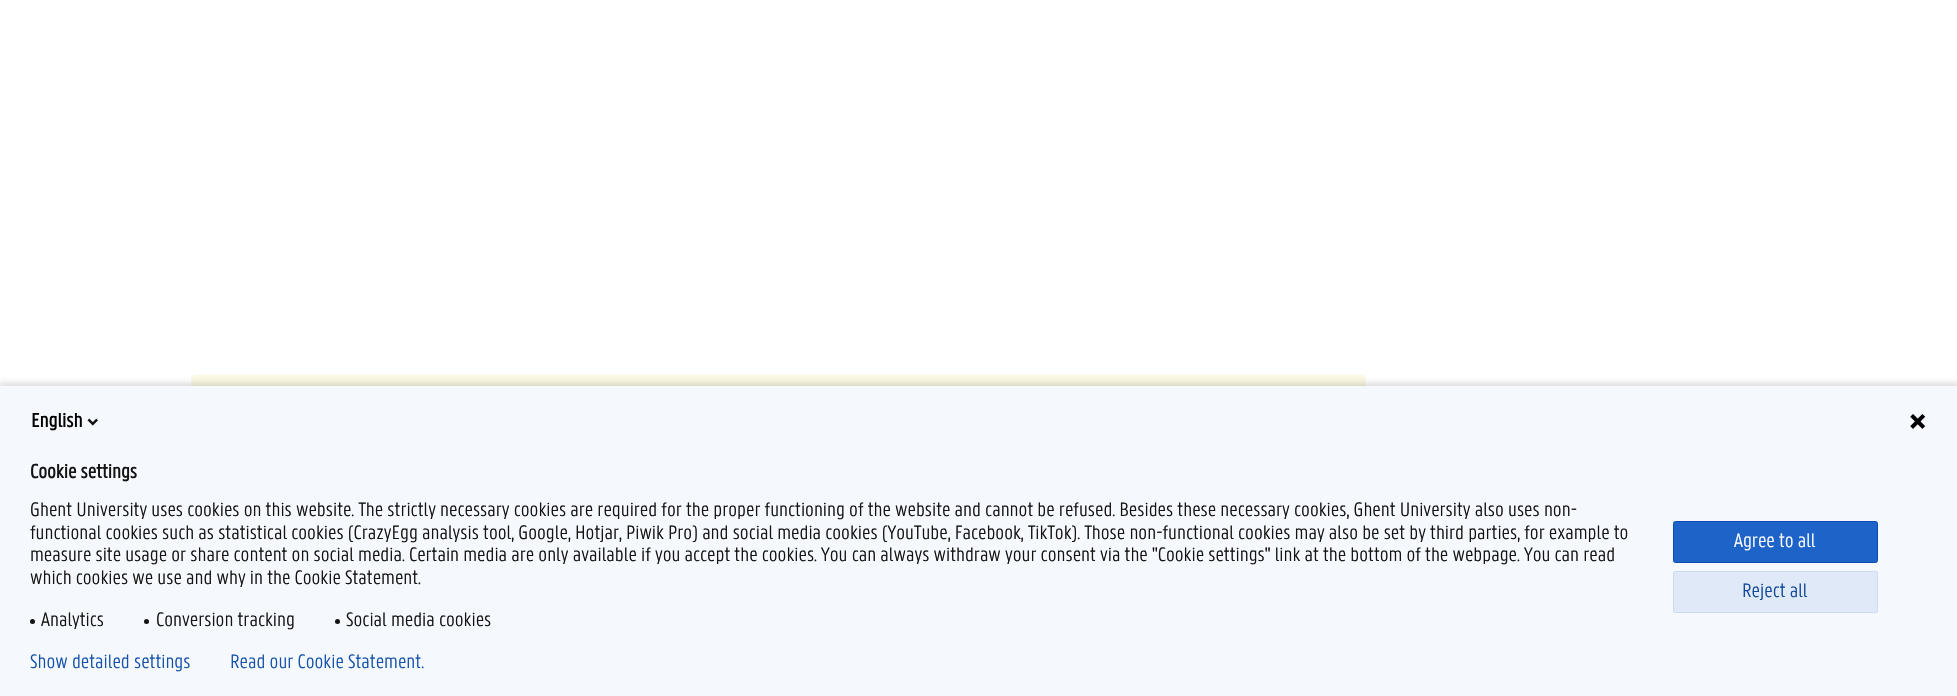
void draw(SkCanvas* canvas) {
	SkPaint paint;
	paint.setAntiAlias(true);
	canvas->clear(0xffffffff);
	paint.setColor(0xfffcf8e3);
	canvas->drawRoundRect(SkRect::MakeXYWH(191, 375, 1175, 78), 5, 5, paint);
	paint.setColor(0x24000000);
	paint.setMaskFilter(SkMaskFilter::MakeBlur(kNormal_SkBlurStyle, 3));
	canvas->drawRect(SkRect::MakeXYWH(-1, 383, 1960, 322), paint);
	paint.setMaskFilter(nullptr);
	paint.setColor(0xfff5f8fc);
	canvas->drawRect(SkRect::MakeXYWH(0, 386, 1957, 310), paint);
	SkFont f1(fontMgr->matchFamilyStyle("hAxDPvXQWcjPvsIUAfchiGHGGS", SkFontStyle::Bold()), 21.25);
	f1.setSubpixel(true);
	paint.setColor(0xff000000);
	canvas->drawString("English", 31, 427, f1, paint);
	canvas->drawImageRect(SkImages::DeferredFromEncodedData(SkData::MakeFromFileName("img1.png")), SkRect::MakeXYWH(87, 418, 11, 8), SkSamplingOptions());
	canvas->drawImageRect(SkImages::DeferredFromEncodedData(SkData::MakeFromFileName("img2.png")), SkRect::MakeXYWH(1910, 414, 16, 15), SkSamplingOptions());
	paint.setColor(0xff131313);
	canvas->drawString("Cookie settings", 30, 478, f1, paint);
	SkFont f2(fontMgr->matchFamilyStyle("hAxDPvXQWcjPvsIUAfchiGHGGS", SkFontStyle(300, SkFontStyle::kNormal_Width, SkFontStyle::kUpright_Slant)), 21.25);
	f2.setSubpixel(true);
	canvas->drawString("Ghent University uses cookies on this website. The strictly necessary cookies are required for the proper functioning of the website and cannot be refused. Besides these necessary cookies, Ghent University also uses non-", 30, 516, f2, paint);
	canvas->drawString("functional cookies such as statistical cookies (CrazyEgg analysis tool, Google, Hotjar, Piwik Pro) and social media cookies (YouTube, Facebook, TikTok). Those non-functional cookies may also be set by third parties, for example to", 30, 539, f2, paint);
	canvas->drawString("measure site usage or share content on social media. Certain media are only available if you accept the cookies. You can always withdraw your consent via the \"Cookie settings\" link at the bottom of the webpage. You can read", 30, 561, f2, paint);
	canvas->drawString("which cookies we use and why in the Cookie Statement.", 30, 584, f2, paint);
	canvas->drawCircle(32.5, 621.5, 2.5, paint);
	canvas->drawString("Analytics", 41, 626, f2, paint);
	canvas->drawCircle(146.5, 621.5, 2.5, paint);
	canvas->drawString("Conversion tracking", 156, 626, f2, paint);
	canvas->drawCircle(337.5, 621.5, 2.5, paint);
	canvas->drawString("Social media cookies", 346, 626, f2, paint);
	paint.setColor(0xff1e64c8);
	canvas->drawRoundRect(SkRect::MakeXYWH(1673.5, 521.5, 204, 41), 2, 2, paint);
	paint.setStroke(true);
	paint.setStrokeWidth(1);
	paint.setColor(0xff0b4bb3);
	canvas->drawRoundRect(SkRect::MakeXYWH(1673.5, 521.5, 204, 41), 2, 2, paint);
	paint.setStroke(false);
	paint.setColor(0xffffffff);
	canvas->drawString("Agree to all", 1734, 547, f2, paint);
	paint.setColor(0xffe0e9f7);
	canvas->drawRoundRect(SkRect::MakeXYWH(1673, 571, 205, 42), 2.5, 2.5, paint);
	paint.setStroke(true);
	paint.setColor(0x1a1e64c8);
	canvas->drawRoundRect(SkRect::MakeXYWH(1673.5, 571.5, 204, 41), 2, 2, paint);
	paint.setStroke(false);
	paint.setColor(0xff114799);
	canvas->drawString("Reject all", 1742, 597, f2, paint);
	paint.setColor(0xff1351ac);
	canvas->drawString("Show detailed settings", 30, 668, f2, paint);
	canvas->drawString("Read our Cookie Statement.", 230, 668, f2, paint);
}
